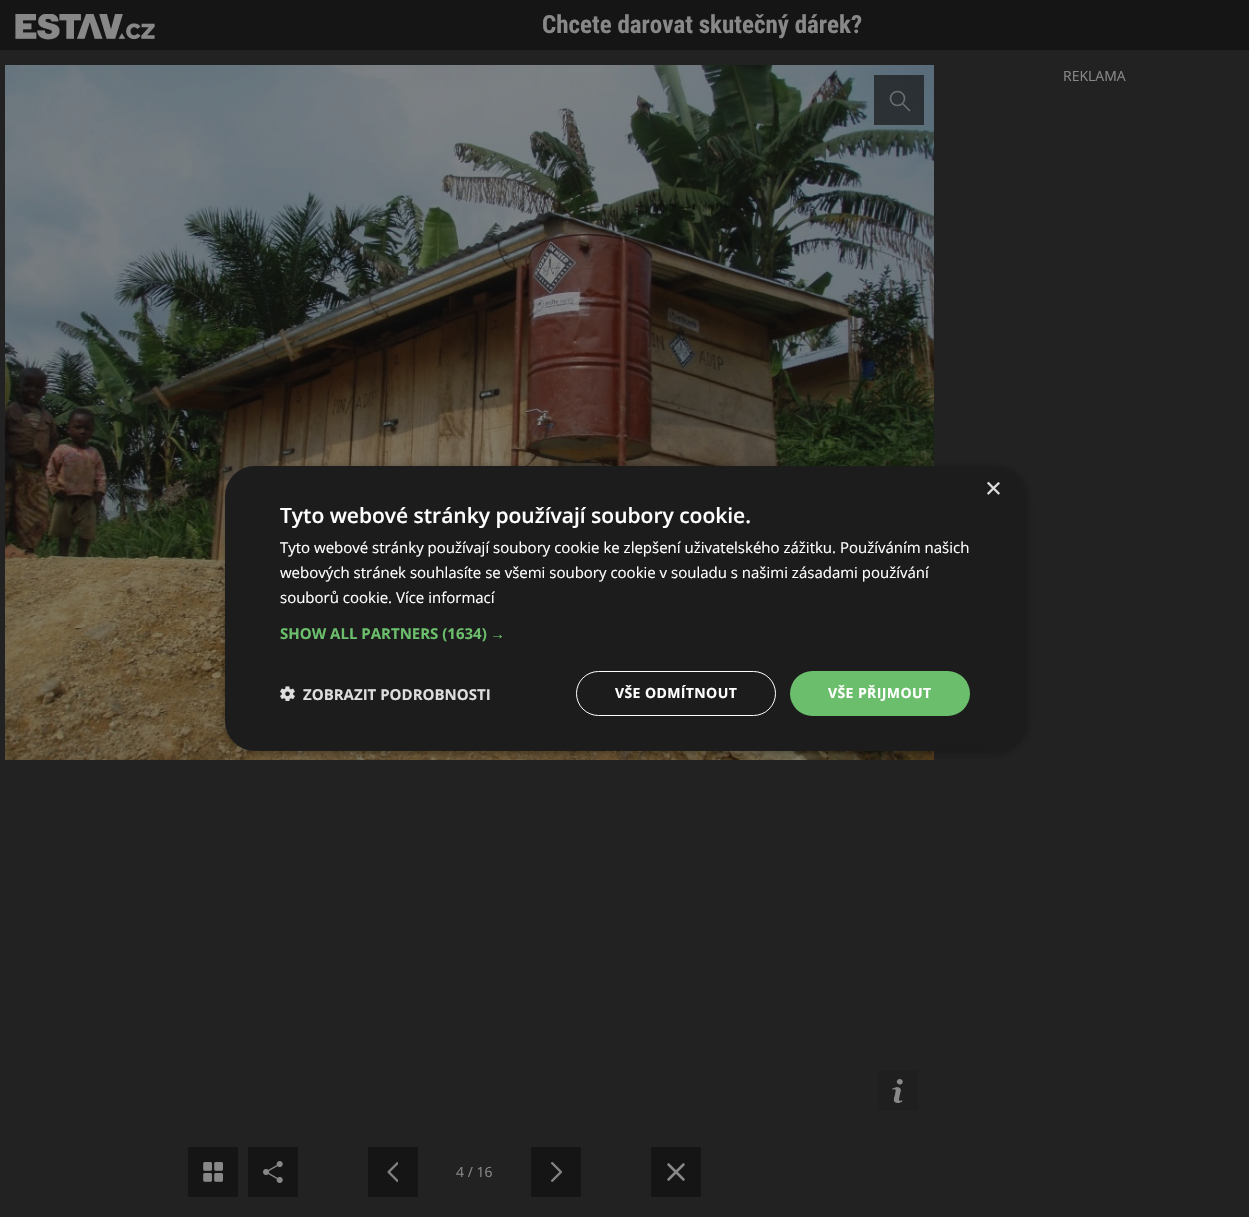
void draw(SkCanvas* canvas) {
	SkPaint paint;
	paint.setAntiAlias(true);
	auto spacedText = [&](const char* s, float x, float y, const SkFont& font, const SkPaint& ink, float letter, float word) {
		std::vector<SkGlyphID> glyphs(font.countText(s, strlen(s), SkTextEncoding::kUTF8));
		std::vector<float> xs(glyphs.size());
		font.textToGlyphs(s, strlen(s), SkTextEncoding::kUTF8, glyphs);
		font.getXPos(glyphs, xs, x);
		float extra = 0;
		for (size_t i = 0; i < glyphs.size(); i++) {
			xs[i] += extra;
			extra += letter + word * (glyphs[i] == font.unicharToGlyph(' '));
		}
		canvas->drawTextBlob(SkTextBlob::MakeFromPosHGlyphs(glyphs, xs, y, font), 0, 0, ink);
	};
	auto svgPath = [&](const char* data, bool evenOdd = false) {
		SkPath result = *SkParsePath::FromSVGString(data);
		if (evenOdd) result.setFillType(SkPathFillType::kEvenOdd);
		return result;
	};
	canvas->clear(0xff222222);
	paint.setColor(0xff151515);
	canvas->drawRect(SkRect::MakeXYWH(0, 0, 1249, 50), paint);
	canvas->drawImageRect(SkImages::DeferredFromEncodedData(SkData::MakeFromFileName("img1.png")), SkRect::MakeXYWH(15, 14, 140, 26), SkSamplingOptions());
	SkFont f1(fontMgr->matchFamilyStyle("Roboto Condensed", SkFontStyle::Bold()), 25);
	f1.setSubpixel(true);
	paint.setColor(0xff888888);
	canvas->drawString("Chcete darovat skutečný dárek?", 542, 33, f1, paint);
	canvas->drawImageRect(SkImages::DeferredFromEncodedData(SkData::MakeFromFileName("img2.png")), SkRect::MakeXYWH(5, 65, 929, 695), SkSamplingOptions());
	paint.setColor(0xb3151515);
	canvas->drawRect(SkRect::MakeXYWH(874, 75, 50, 50), paint);
	paint.setStroke(true);
	paint.setStrokeWidth(1.6);
	paint.setColor(0xff6c6e6f);
	canvas->drawCircle(897.5, 98.5, 7, paint);
	canvas->drawPath(svgPath("M903 104L910 111"), paint);
	paint.setStroke(false);
	paint.setColor(0xff1f1f1f);
	canvas->drawRect(SkRect::MakeXYWH(878, 1071, 40, 40), paint);
	canvas->drawImageRect(SkImages::DeferredFromEncodedData(SkData::MakeFromFileName("img3.png")), SkRect::MakeXYWH(892, 1079, 11, 24), SkSamplingOptions());
	SkFont f2(fontMgr->matchFamilyStyle("Open Sans", SkFontStyle::Normal()), 14);
	f2.setSubpixel(true);
	paint.setColor(0xff888888);
	canvas->drawString("REKLAMA", 1063, 81, f2, paint);
	paint.setColor(0xff151515);
	canvas->drawRect(SkRect::MakeXYWH(188, 1147, 50, 50), paint);
	canvas->drawImageRect(SkImages::DeferredFromEncodedData(SkData::MakeFromFileName("img4.png")), SkRect::MakeXYWH(203, 1162, 20, 20), SkSamplingOptions());
	canvas->drawRect(SkRect::MakeXYWH(248, 1147, 50, 50), paint);
	canvas->drawImageRect(SkImages::DeferredFromEncodedData(SkData::MakeFromFileName("img5.png")), SkRect::MakeXYWH(263, 1161, 20, 22), SkSamplingOptions());
	canvas->drawRect(SkRect::MakeXYWH(368, 1147, 50, 50), paint);
	canvas->drawImageRect(SkImages::DeferredFromEncodedData(SkData::MakeFromFileName("img6.png")), SkRect::MakeXYWH(387, 1162, 11, 20), SkSamplingOptions());
	paint.setColor(0xff888888);
	canvas->drawString("4 / 16", 456, 1177, f2, paint);
	paint.setColor(0xff151515);
	canvas->drawRect(SkRect::MakeXYWH(531, 1147, 50, 50), paint);
	canvas->drawImageRect(SkImages::DeferredFromEncodedData(SkData::MakeFromFileName("img7.png")), SkRect::MakeXYWH(551, 1162, 12, 20), SkSamplingOptions());
	canvas->drawRect(SkRect::MakeXYWH(651, 1147, 50, 50), paint);
	paint.setStroke(true);
	paint.setStrokeWidth(2.5);
	paint.setStrokeCap(SkPaint::kRound_Cap);
	paint.setColor(0xff888888);
	canvas->drawPath(svgPath("M668.5 1164.5L683.5 1179.5M683.5 1164.5L668.5 1179.5"), paint);
	paint.setStroke(false);
	paint.setColor(0x59000000);
	paint.setMaskFilter(SkMaskFilter::MakeBlur(kNormal_SkBlurStyle, 4));
	canvas->drawRoundRect(SkRect::MakeXYWH(226, 468, 800, 285), 30, 30, paint);
	paint.setMaskFilter(nullptr);
	paint.setColor(0xff1c1c1c);
	canvas->drawRoundRect(SkRect::MakeXYWH(225, 466, 800, 285), 30, 30, paint);
	SkFont f3(fontMgr->matchFamilyStyle("Liberation Sans", SkFontStyle::Normal()), 29);
	f3.setSubpixel(true);
	paint.setColor(0xffdddddd);
	canvas->drawString("×", 985, 498, f3, paint);
	SkFont f4(fontMgr->matchFamilyStyle("Open Sans", SkFontStyle(600, SkFontStyle::kNormal_Width, SkFontStyle::kUpright_Slant)), 21);
	f4.setSubpixel(true);
	paint.setColor(0xffffffff);
	canvas->drawString("Tyto webové stránky používají soubory cookie.", 280, 523, f4, paint);
	SkFont f5(fontMgr->matchFamilyStyle("Open Sans", SkFontStyle::Normal()), 15);
	f5.setSubpixel(true);
	canvas->drawString("Tyto webové stránky používají soubory cookie ke zlepšení uživatelského zážitku. Používáním našich", 280, 553, f5, paint);
	canvas->drawString("webových stránek souhlasíte se všemi soubory cookie v souladu s našimi zásadami používání", 280, 578, f5, paint);
	canvas->drawString("souborů cookie. Více informací", 280, 603, f5, paint);
	SkFont f6(fontMgr->matchFamilyStyle("Open Sans", SkFontStyle::Bold()), 15);
	f6.setSubpixel(true);
	paint.setColor(0xff6bbe6b);
	canvas->drawString("SHOW ALL PARTNERS (1634)", 280, 639, f6, paint);
	SkFont f7(fontMgr->matchFamilyStyle("Liberation Sans", SkFontStyle::Bold()), 15);
	f7.setSubpixel(true);
	canvas->drawString("→", 490, 639, f7, paint);
	canvas->drawImageRect(SkImages::DeferredFromEncodedData(SkData::MakeFromFileName("img8.png")), SkRect::MakeXYWH(280, 686, 15, 15), SkSamplingOptions());
	paint.setColor(0xffdddddd);
	canvas->drawString("ZOBRAZIT PODROBNOSTI", 303, 700, f6, paint);
	paint.setStroke(true);
	paint.setStrokeWidth(1);
	paint.setStrokeCap(SkPaint::kButt_Cap);
	paint.setColor(0xffffffff);
	canvas->drawRoundRect(SkRect::MakeXYWH(576.5, 671.5, 199, 44), 22, 22, paint);
	SkFont f8(fontMgr->matchFamilyStyle("Open Sans", SkFontStyle::Bold()), 14);
	f8.setSubpixel(true);
	paint.setStroke(false);
	spacedText("VŠE ODMÍTNOUT", 615, 698, f8, paint, 0.4, 0);
	paint.setColor(0xff6bbe6b);
	canvas->drawRoundRect(SkRect::MakeXYWH(790, 671, 180, 45), 22.5, 22.5, paint);
	paint.setColor(0xffffffff);
	spacedText("VŠE PŘIJMOUT", 828, 698, f8, paint, 0.4, 0);
}
